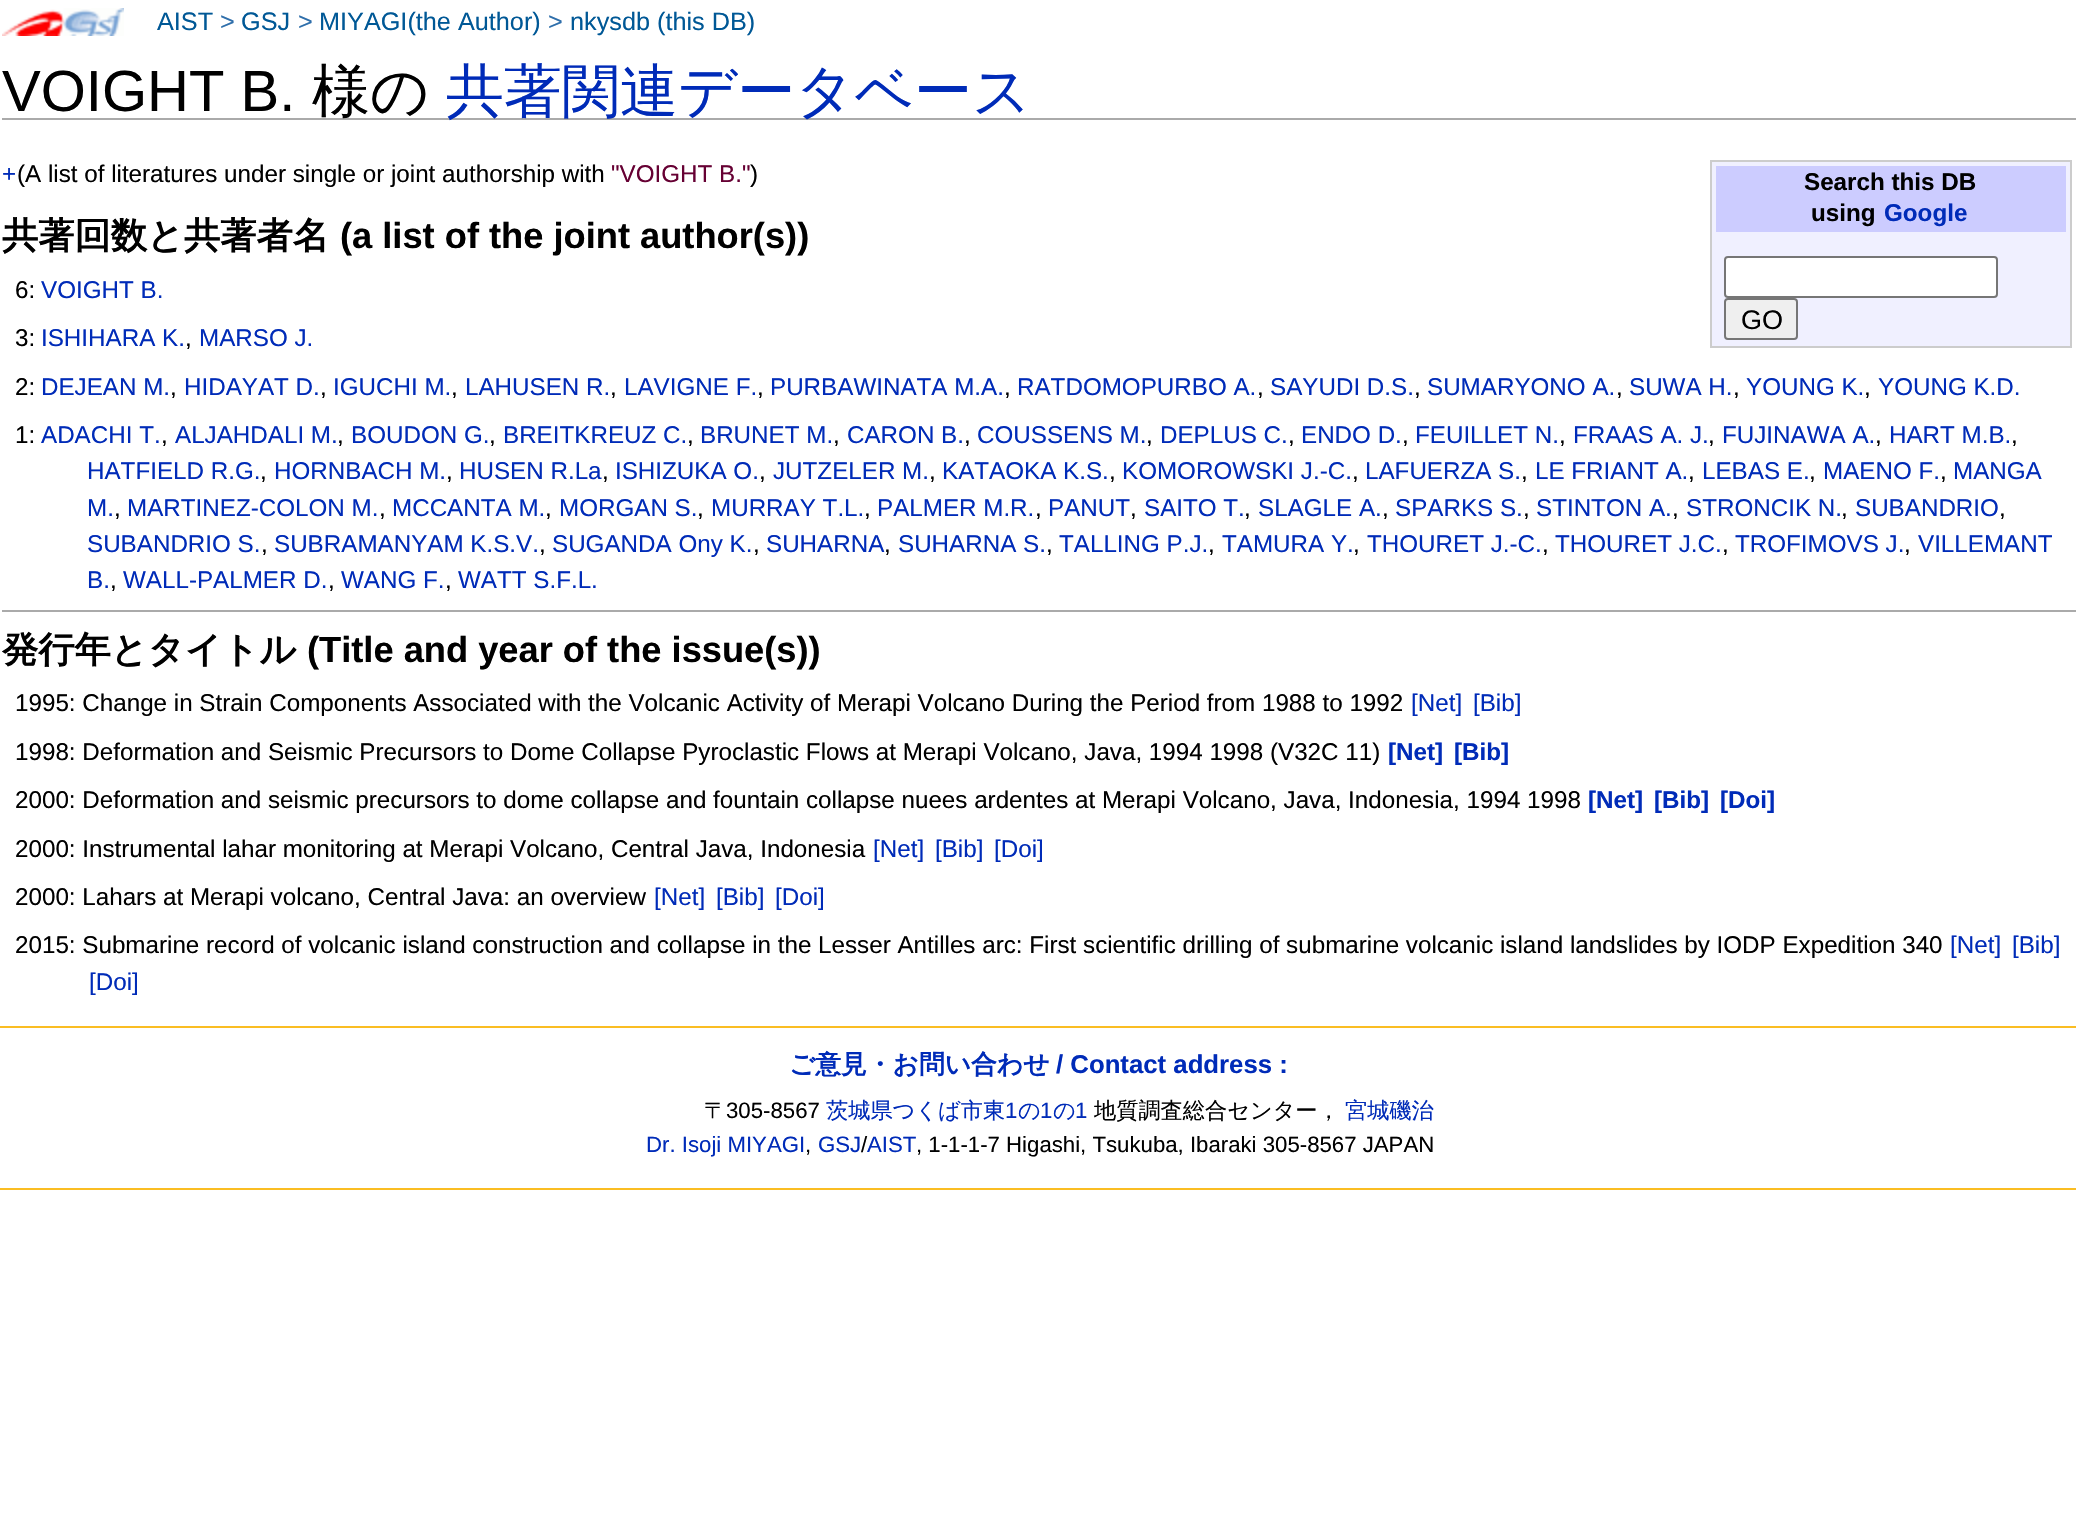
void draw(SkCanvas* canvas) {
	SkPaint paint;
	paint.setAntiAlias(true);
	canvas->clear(0xffffffff);
	canvas->drawImageRect(SkImages::DeferredFromEncodedData(SkData::MakeFromFileName("img1.png")), SkRect::MakeXYWH(2, 8, 122, 28), SkSamplingOptions());
	SkFont f1(fontMgr->matchFamilyStyle("Liberation Sans", SkFontStyle::Normal()), 25.25);
	f1.setSubpixel(true);
	paint.setColor(0xff005896);
	canvas->drawString("AIST", 157, 30, f1, paint);
	paint.setColor(0xff2f6fab);
	canvas->drawString(">", 220, 30, f1, paint);
	paint.setColor(0xff005896);
	canvas->drawString("GSJ", 241, 30, f1, paint);
	paint.setColor(0xff2f6fab);
	canvas->drawString(">", 298, 30, f1, paint);
	paint.setColor(0xff005896);
	canvas->drawString("MIYAGI(the Author)", 319, 30, f1, paint);
	paint.setColor(0xff2f6fab);
	canvas->drawString(">", 548, 30, f1, paint);
	paint.setColor(0xff005896);
	canvas->drawString("nkysdb (this DB)", 570, 30, f1, paint);
	paint.setColor(0xffaaaaaa);
	canvas->drawRect(SkRect::MakeXYWH(2, 118, 2074, 2), paint);
	SkFont f2(fontMgr->matchFamilyStyle("Liberation Sans", SkFontStyle::Normal()), 58);
	f2.setSubpixel(true);
	paint.setColor(0xff000000);
	canvas->drawString("VOIGHT B.", 2, 111, f2, paint);
	SkFont f3(fontMgr->matchFamilyStyle("WenQuanYi Zen Hei", SkFontStyle(500, SkFontStyle::kNormal_Width, SkFontStyle::kUpright_Slant)), 58);
	f3.setSubpixel(true);
	canvas->drawString("様の", 312, 111, f3, paint);
	paint.setColor(0xff002bb8);
	canvas->drawString("共著関連データベース", 446, 111, f3, paint);
	SkFont f4(fontMgr->matchFamilyStyle("Liberation Sans", SkFontStyle::Normal()), 24.2);
	f4.setSubpixel(true);
	canvas->drawString("+", 2, 182, f4, paint);
	paint.setColor(0xff000000);
	canvas->drawString("(A list of literatures under single or joint authorship with", 17, 182, f4, paint);
	paint.setColor(0xff660033);
	canvas->drawString("\"VOIGHT B.\"", 611, 182, f4, paint);
	paint.setColor(0xff000000);
	canvas->drawString(")", 750, 182, f4, paint);
	paint.setColor(0xfff0f0ff);
	canvas->drawRect(SkRect::MakeXYWH(1711, 161, 360, 186), paint);
	paint.setStroke(true);
	paint.setStrokeWidth(2);
	paint.setColor(0xffcccccc);
	canvas->drawRect(SkRect::MakeXYWH(1711, 161, 360, 186), paint);
	paint.setStroke(false);
	paint.setColor(0xffccccff);
	canvas->drawRect(SkRect::MakeXYWH(1716, 166, 350, 66), paint);
	SkFont f5(fontMgr->matchFamilyStyle("Liberation Sans", SkFontStyle::Bold()), 24.2);
	f5.setSubpixel(true);
	paint.setColor(0xff000000);
	canvas->drawString("Search this DB", 1804, 190, f5, paint);
	canvas->drawString("using", 1811, 221, f5, paint);
	paint.setColor(0xff002bb8);
	canvas->drawString("Google", 1884, 221, f5, paint);
	paint.setColor(0xffffffff);
	canvas->drawRoundRect(SkRect::MakeXYWH(1725, 257, 272, 40), 3, 3, paint);
	paint.setStroke(true);
	paint.setColor(0xff767676);
	canvas->drawRoundRect(SkRect::MakeXYWH(1725, 257, 272, 40), 3, 3, paint);
	paint.setStroke(false);
	paint.setColor(0xffefefef);
	canvas->drawRoundRect(SkRect::MakeXYWH(1725, 299, 72, 40), 3, 3, paint);
	paint.setStroke(true);
	paint.setColor(0xff767676);
	canvas->drawRoundRect(SkRect::MakeXYWH(1725, 299, 72, 40), 3, 3, paint);
	SkFont f6(fontMgr->matchFamilyStyle("Liberation Sans", SkFontStyle::Normal()), 27);
	f6.setSubpixel(true);
	paint.setStroke(false);
	paint.setColor(0xff000000);
	canvas->drawString("GO", 1741, 329, f6, paint);
	SkFont f7(fontMgr->matchFamilyStyle("WenQuanYi Zen Hei", SkFontStyle::Bold()), 36.25);
	f7.setSubpixel(true);
	canvas->drawString("共著回数と共著者名", 2, 248, f7, paint);
	SkFont f8(fontMgr->matchFamilyStyle("Liberation Sans", SkFontStyle::Bold()), 36.25);
	f8.setSubpixel(true);
	canvas->drawString("(a list of the joint author(s))", 340, 248, f8, paint);
	canvas->drawString("6:", 15, 298, f4, paint);
	paint.setColor(0xff002bb8);
	canvas->drawString("VOIGHT B.", 41, 298, f4, paint);
	paint.setColor(0xff000000);
	canvas->drawString("3:", 15, 346, f4, paint);
	paint.setColor(0xff002bb8);
	canvas->drawString("ISHIHARA K.", 41, 346, f4, paint);
	paint.setColor(0xff000000);
	canvas->drawString(",", 185, 346, f4, paint);
	paint.setColor(0xff002bb8);
	canvas->drawString("MARSO J.", 199, 346, f4, paint);
	paint.setColor(0xff000000);
	canvas->drawString("2:", 15, 395, f4, paint);
	paint.setColor(0xff002bb8);
	canvas->drawString("DEJEAN M.", 41, 395, f4, paint);
	paint.setColor(0xff000000);
	canvas->drawString(",", 170, 395, f4, paint);
	paint.setColor(0xff002bb8);
	canvas->drawString("HIDAYAT D.", 184, 395, f4, paint);
	paint.setColor(0xff000000);
	canvas->drawString(",", 320, 395, f4, paint);
	paint.setColor(0xff002bb8);
	canvas->drawString("IGUCHI M.", 333, 395, f4, paint);
	paint.setColor(0xff000000);
	canvas->drawString(",", 451, 395, f4, paint);
	paint.setColor(0xff002bb8);
	canvas->drawString("LAHUSEN R.", 465, 395, f4, paint);
	paint.setColor(0xff000000);
	canvas->drawString(",", 610, 395, f4, paint);
	paint.setColor(0xff002bb8);
	canvas->drawString("LAVIGNE F.", 624, 395, f4, paint);
	paint.setColor(0xff000000);
	canvas->drawString(",", 757, 395, f4, paint);
	paint.setColor(0xff002bb8);
	canvas->drawString("PURBAWINATA M.A.", 770, 395, f4, paint);
	paint.setColor(0xff000000);
	canvas->drawString(",", 1004, 395, f4, paint);
	paint.setColor(0xff002bb8);
	canvas->drawString("RATDOMOPURBO A.", 1017, 395, f4, paint);
	paint.setColor(0xff000000);
	canvas->drawString(",", 1257, 395, f4, paint);
	paint.setColor(0xff002bb8);
	canvas->drawString("SAYUDI D.S.", 1270, 395, f4, paint);
	paint.setColor(0xff000000);
	canvas->drawString(",", 1414, 395, f4, paint);
	paint.setColor(0xff002bb8);
	canvas->drawString("SUMARYONO A.", 1427, 395, f4, paint);
	paint.setColor(0xff000000);
	canvas->drawString(",", 1616, 395, f4, paint);
	paint.setColor(0xff002bb8);
	canvas->drawString("SUWA H.", 1629, 395, f4, paint);
	paint.setColor(0xff000000);
	canvas->drawString(",", 1733, 395, f4, paint);
	paint.setColor(0xff002bb8);
	canvas->drawString("YOUNG K.", 1746, 395, f4, paint);
	paint.setColor(0xff000000);
	canvas->drawString(",", 1864, 395, f4, paint);
	paint.setColor(0xff002bb8);
	canvas->drawString("YOUNG K.D.", 1878, 395, f4, paint);
	paint.setColor(0xff000000);
	canvas->drawString("1:", 15, 443, f4, paint);
	paint.setColor(0xff002bb8);
	canvas->drawString("ADACHI T.", 41, 443, f4, paint);
	paint.setColor(0xff000000);
	canvas->drawString(",", 161, 443, f4, paint);
	paint.setColor(0xff002bb8);
	canvas->drawString("ALJAHDALI M.", 175, 443, f4, paint);
	paint.setColor(0xff000000);
	canvas->drawString(",", 337, 443, f4, paint);
	paint.setColor(0xff002bb8);
	canvas->drawString("BOUDON G.", 351, 443, f4, paint);
	paint.setColor(0xff000000);
	canvas->drawString(",", 489, 443, f4, paint);
	paint.setColor(0xff002bb8);
	canvas->drawString("BREITKREUZ C.", 503, 443, f4, paint);
	paint.setColor(0xff000000);
	canvas->drawString(",", 687, 443, f4, paint);
	paint.setColor(0xff002bb8);
	canvas->drawString("BRUNET M.", 700, 443, f4, paint);
	paint.setColor(0xff000000);
	canvas->drawString(",", 833, 443, f4, paint);
	paint.setColor(0xff002bb8);
	canvas->drawString("CARON B.", 847, 443, f4, paint);
	paint.setColor(0xff000000);
	canvas->drawString(",", 964, 443, f4, paint);
	paint.setColor(0xff002bb8);
	canvas->drawString("COUSSENS M.", 977, 443, f4, paint);
	paint.setColor(0xff000000);
	canvas->drawString(",", 1146, 443, f4, paint);
	paint.setColor(0xff002bb8);
	canvas->drawString("DEPLUS C.", 1160, 443, f4, paint);
	paint.setColor(0xff000000);
	canvas->drawString(",", 1288, 443, f4, paint);
	paint.setColor(0xff002bb8);
	canvas->drawString("ENDO D.", 1301, 443, f4, paint);
	paint.setColor(0xff000000);
	canvas->drawString(",", 1402, 443, f4, paint);
	paint.setColor(0xff002bb8);
	canvas->drawString("FEUILLET N.", 1415, 443, f4, paint);
	paint.setColor(0xff000000);
	canvas->drawString(",", 1559, 443, f4, paint);
	paint.setColor(0xff002bb8);
	canvas->drawString("FRAAS A. J.", 1573, 443, f4, paint);
	paint.setColor(0xff000000);
	canvas->drawString(",", 1708, 443, f4, paint);
	paint.setColor(0xff002bb8);
	canvas->drawString("FUJINAWA A.", 1722, 443, f4, paint);
	paint.setColor(0xff000000);
	canvas->drawString(",", 1875, 443, f4, paint);
	paint.setColor(0xff002bb8);
	canvas->drawString("HART M.B.", 1889, 443, f4, paint);
	paint.setColor(0xff000000);
	canvas->drawString(",", 2011, 443, f4, paint);
	paint.setColor(0xff002bb8);
	canvas->drawString("HATFIELD R.G.", 87, 479, f4, paint);
	paint.setColor(0xff000000);
	canvas->drawString(",", 260, 479, f4, paint);
	paint.setColor(0xff002bb8);
	canvas->drawString("HORNBACH M.", 274, 479, f4, paint);
	paint.setColor(0xff000000);
	canvas->drawString(",", 446, 479, f4, paint);
	paint.setColor(0xff002bb8);
	canvas->drawString("HUSEN R.La", 459, 479, f4, paint);
	paint.setColor(0xff000000);
	canvas->drawString(",", 602, 479, f4, paint);
	paint.setColor(0xff002bb8);
	canvas->drawString("ISHIZUKA O.", 615, 479, f4, paint);
	paint.setColor(0xff000000);
	canvas->drawString(",", 759, 479, f4, paint);
	paint.setColor(0xff002bb8);
	canvas->drawString("JUTZELER M.", 773, 479, f4, paint);
	paint.setColor(0xff000000);
	canvas->drawString(",", 929, 479, f4, paint);
	paint.setColor(0xff002bb8);
	canvas->drawString("KATAOKA K.S.", 942, 479, f4, paint);
	paint.setColor(0xff000000);
	canvas->drawString(",", 1109, 479, f4, paint);
	paint.setColor(0xff002bb8);
	canvas->drawString("KOMOROWSKI J.-C.", 1122, 479, f4, paint);
	paint.setColor(0xff000000);
	canvas->drawString(",", 1352, 479, f4, paint);
	paint.setColor(0xff002bb8);
	canvas->drawString("LAFUERZA S.", 1365, 479, f4, paint);
	paint.setColor(0xff000000);
	canvas->drawString(",", 1521, 479, f4, paint);
	paint.setColor(0xff002bb8);
	canvas->drawString("LE FRIANT A.", 1535, 479, f4, paint);
	paint.setColor(0xff000000);
	canvas->drawString(",", 1688, 479, f4, paint);
	paint.setColor(0xff002bb8);
	canvas->drawString("LEBAS E.", 1702, 479, f4, paint);
	paint.setColor(0xff000000);
	canvas->drawString(",", 1809, 479, f4, paint);
	paint.setColor(0xff002bb8);
	canvas->drawString("MAENO F.", 1823, 479, f4, paint);
	paint.setColor(0xff000000);
	canvas->drawString(",", 1940, 479, f4, paint);
	paint.setColor(0xff002bb8);
	canvas->drawString("MANGA", 1953, 479, f4, paint);
	canvas->drawString("M.", 87, 516, f4, paint);
	paint.setColor(0xff000000);
	canvas->drawString(",", 114, 516, f4, paint);
	paint.setColor(0xff002bb8);
	canvas->drawString("MARTINEZ-COLON M.", 127, 516, f4, paint);
	paint.setColor(0xff000000);
	canvas->drawString(",", 379, 516, f4, paint);
	paint.setColor(0xff002bb8);
	canvas->drawString("MCCANTA M.", 392, 516, f4, paint);
	paint.setColor(0xff000000);
	canvas->drawString(",", 545, 516, f4, paint);
	paint.setColor(0xff002bb8);
	canvas->drawString("MORGAN S.", 559, 516, f4, paint);
	paint.setColor(0xff000000);
	canvas->drawString(",", 697, 516, f4, paint);
	paint.setColor(0xff002bb8);
	canvas->drawString("MURRAY T.L.", 711, 516, f4, paint);
	paint.setColor(0xff000000);
	canvas->drawString(",", 864, 516, f4, paint);
	paint.setColor(0xff002bb8);
	canvas->drawString("PALMER M.R.", 877, 516, f4, paint);
	paint.setColor(0xff000000);
	canvas->drawString(",", 1035, 516, f4, paint);
	paint.setColor(0xff002bb8);
	canvas->drawString("PANUT", 1048, 516, f4, paint);
	paint.setColor(0xff000000);
	canvas->drawString(",", 1130, 516, f4, paint);
	paint.setColor(0xff002bb8);
	canvas->drawString("SAITO T.", 1144, 516, f4, paint);
	paint.setColor(0xff000000);
	canvas->drawString(",", 1244, 516, f4, paint);
	paint.setColor(0xff002bb8);
	canvas->drawString("SLAGLE A.", 1258, 516, f4, paint);
	paint.setColor(0xff000000);
	canvas->drawString(",", 1382, 516, f4, paint);
	paint.setColor(0xff002bb8);
	canvas->drawString("SPARKS S.", 1395, 516, f4, paint);
	paint.setColor(0xff000000);
	canvas->drawString(",", 1523, 516, f4, paint);
	paint.setColor(0xff002bb8);
	canvas->drawString("STINTON A.", 1536, 516, f4, paint);
	paint.setColor(0xff000000);
	canvas->drawString(",", 1672, 516, f4, paint);
	paint.setColor(0xff002bb8);
	canvas->drawString("STRONCIK N.", 1686, 516, f4, paint);
	paint.setColor(0xff000000);
	canvas->drawString(",", 1841, 516, f4, paint);
	paint.setColor(0xff002bb8);
	canvas->drawString("SUBANDRIO", 1855, 516, f4, paint);
	paint.setColor(0xff000000);
	canvas->drawString(",", 1999, 516, f4, paint);
	paint.setColor(0xff002bb8);
	canvas->drawString("SUBANDRIO S.", 87, 552, f4, paint);
	paint.setColor(0xff000000);
	canvas->drawString(",", 261, 552, f4, paint);
	paint.setColor(0xff002bb8);
	canvas->drawString("SUBRAMANYAM K.S.V.", 274, 552, f4, paint);
	paint.setColor(0xff000000);
	canvas->drawString(",", 539, 552, f4, paint);
	paint.setColor(0xff002bb8);
	canvas->drawString("SUGANDA Ony K.", 552, 552, f4, paint);
	paint.setColor(0xff000000);
	canvas->drawString(",", 753, 552, f4, paint);
	paint.setColor(0xff002bb8);
	canvas->drawString("SUHARNA", 766, 552, f4, paint);
	paint.setColor(0xff000000);
	canvas->drawString(",", 884, 552, f4, paint);
	paint.setColor(0xff002bb8);
	canvas->drawString("SUHARNA S.", 898, 552, f4, paint);
	paint.setColor(0xff000000);
	canvas->drawString(",", 1046, 552, f4, paint);
	paint.setColor(0xff002bb8);
	canvas->drawString("TALLING P.J.", 1059, 552, f4, paint);
	paint.setColor(0xff000000);
	canvas->drawString(",", 1208, 552, f4, paint);
	paint.setColor(0xff002bb8);
	canvas->drawString("TAMURA Y.", 1222, 552, f4, paint);
	paint.setColor(0xff000000);
	canvas->drawString(",", 1353, 552, f4, paint);
	paint.setColor(0xff002bb8);
	canvas->drawString("THOURET J.-C.", 1367, 552, f4, paint);
	paint.setColor(0xff000000);
	canvas->drawString(",", 1542, 552, f4, paint);
	paint.setColor(0xff002bb8);
	canvas->drawString("THOURET J.C.", 1555, 552, f4, paint);
	paint.setColor(0xff000000);
	canvas->drawString(",", 1722, 552, f4, paint);
	paint.setColor(0xff002bb8);
	canvas->drawString("TROFIMOVS J.", 1735, 552, f4, paint);
	paint.setColor(0xff000000);
	canvas->drawString(",", 1904, 552, f4, paint);
	paint.setColor(0xff002bb8);
	canvas->drawString("VILLEMANT", 1918, 552, f4, paint);
	canvas->drawString("B.", 87, 588, f4, paint);
	paint.setColor(0xff000000);
	canvas->drawString(",", 110, 588, f4, paint);
	paint.setColor(0xff002bb8);
	canvas->drawString("WALL-PALMER D.", 123, 588, f4, paint);
	paint.setColor(0xff000000);
	canvas->drawString(",", 328, 588, f4, paint);
	paint.setColor(0xff002bb8);
	canvas->drawString("WANG F.", 341, 588, f4, paint);
	paint.setColor(0xff000000);
	canvas->drawString(",", 445, 588, f4, paint);
	paint.setColor(0xff002bb8);
	canvas->drawString("WATT S.F.L.", 458, 588, f4, paint);
	paint.setColor(0xffaaaaaa);
	canvas->drawRect(SkRect::MakeXYWH(2, 610, 2074, 2), paint);
	paint.setColor(0xff000000);
	canvas->drawString("発行年とタイトル", 2, 662, f7, paint);
	canvas->drawString("(Title and year of the issue(s))", 307, 662, f8, paint);
	canvas->drawString("1995: Change in Strain Components Associated with the Volcanic Activity of Merapi Volcano During the Period from 1988 to 1992", 15, 711, f4, paint);
	paint.setColor(0xff002bb8);
	canvas->drawString("[Net]", 1411, 711, f4, paint);
	canvas->drawString("[Bib]", 1473, 711, f4, paint);
	paint.setColor(0xff000000);
	canvas->drawString("1998: Deformation and Seismic Precursors to Dome Collapse Pyroclastic Flows at Merapi Volcano, Java, 1994 1998 (V32C 11)", 15, 760, f4, paint);
	paint.setColor(0xff002bb8);
	canvas->drawString("[Net]", 1388, 760, f5, paint);
	canvas->drawString("[Bib]", 1454, 760, f5, paint);
	paint.setColor(0xff000000);
	canvas->drawString("2000: Deformation and seismic precursors to dome collapse and fountain collapse nuees ardentes at Merapi Volcano, Java, Indonesia, 1994 1998", 15, 808, f4, paint);
	paint.setColor(0xff002bb8);
	canvas->drawString("[Net]", 1588, 808, f5, paint);
	canvas->drawString("[Bib]", 1654, 808, f5, paint);
	canvas->drawString("[Doi]", 1720, 808, f5, paint);
	paint.setColor(0xff000000);
	canvas->drawString("2000: Instrumental lahar monitoring at Merapi Volcano, Central Java, Indonesia", 15, 857, f4, paint);
	paint.setColor(0xff002bb8);
	canvas->drawString("[Net]", 873, 857, f4, paint);
	canvas->drawString("[Bib]", 935, 857, f4, paint);
	canvas->drawString("[Doi]", 994, 857, f4, paint);
	paint.setColor(0xff000000);
	canvas->drawString("2000: Lahars at Merapi volcano, Central Java: an overview", 15, 905, f4, paint);
	paint.setColor(0xff002bb8);
	canvas->drawString("[Net]", 654, 905, f4, paint);
	canvas->drawString("[Bib]", 716, 905, f4, paint);
	canvas->drawString("[Doi]", 775, 905, f4, paint);
	paint.setColor(0xff000000);
	canvas->drawString("2015: Submarine record of volcanic island construction and collapse in the Lesser Antilles arc: First scientific drilling of submarine volcanic island landslides by IODP Expedition 340", 15, 953, f4, paint);
	paint.setColor(0xff002bb8);
	canvas->drawString("[Net]", 1950, 953, f4, paint);
	canvas->drawString("[Bib]", 2012, 953, f4, paint);
	canvas->drawString("[Doi]", 89, 990, f4, paint);
	paint.setColor(0xfffabd23);
	canvas->drawRect(SkRect::MakeXYWH(0, 1026, 2076, 2), paint);
	canvas->drawRect(SkRect::MakeXYWH(0, 1188, 2076, 2), paint);
	SkFont f9(fontMgr->matchFamilyStyle("WenQuanYi Zen Hei", SkFontStyle::Bold()), 25.75);
	f9.setSubpixel(true);
	paint.setColor(0xff002bb8);
	canvas->drawString("ご意見・お問い合わせ", 789, 1073, f9, paint);
	SkFont f10(fontMgr->matchFamilyStyle("Liberation Sans", SkFontStyle::Bold()), 25.75);
	f10.setSubpixel(true);
	canvas->drawString("/ Contact address :", 1056, 1073, f10, paint);
	SkFont f11(fontMgr->matchFamilyStyle("WenQuanYi Zen Hei", SkFontStyle(500, SkFontStyle::kNormal_Width, SkFontStyle::kUpright_Slant)), 22.2);
	f11.setSubpixel(true);
	paint.setColor(0xff000000);
	canvas->drawString("〒", 704, 1118, f11, paint);
	SkFont f12(fontMgr->matchFamilyStyle("Liberation Sans", SkFontStyle::Normal()), 22.2);
	f12.setSubpixel(true);
	canvas->drawString("305-8567", 726, 1118, f12, paint);
	paint.setColor(0xff002bb8);
	canvas->drawString("茨城県つくば市東", 826, 1118, f11, paint);
	canvas->drawString("1", 1005, 1118, f12, paint);
	canvas->drawString("の", 1018, 1118, f11, paint);
	canvas->drawString("1", 1040, 1118, f12, paint);
	canvas->drawString("の", 1053, 1118, f11, paint);
	canvas->drawString("1", 1075, 1118, f12, paint);
	paint.setColor(0xff000000);
	canvas->drawString("地質調査総合センター，", 1094, 1118, f11, paint);
	paint.setColor(0xff002bb8);
	canvas->drawString("宮城磯治", 1345, 1118, f11, paint);
	canvas->drawString("Dr. Isoji MIYAGI", 646, 1152, f12, paint);
	paint.setColor(0xff000000);
	canvas->drawString(",", 805, 1152, f12, paint);
	paint.setColor(0xff002bb8);
	canvas->drawString("GSJ", 818, 1152, f12, paint);
	paint.setColor(0xff000000);
	canvas->drawString("/", 861, 1152, f12, paint);
	paint.setColor(0xff002bb8);
	canvas->drawString("AIST", 867, 1152, f12, paint);
	paint.setColor(0xff000000);
	canvas->drawString(", 1-1-1-7 Higashi, Tsukuba, Ibaraki 305-8567 JAPAN", 916, 1152, f12, paint);
}
